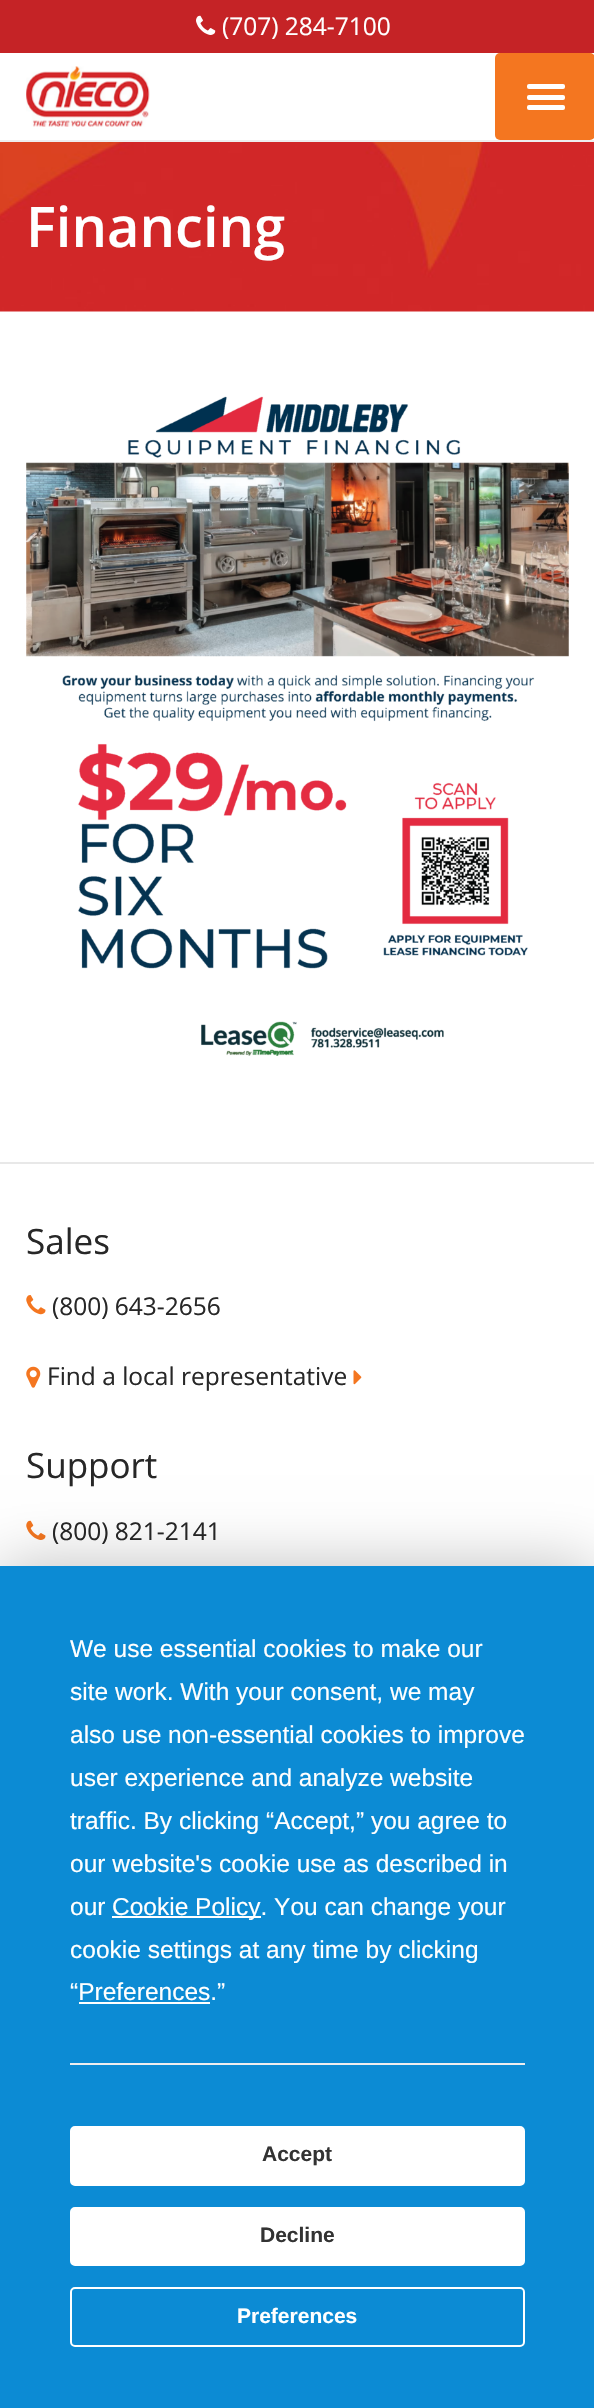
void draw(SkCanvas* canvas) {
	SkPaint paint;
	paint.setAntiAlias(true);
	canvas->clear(0xffffffff);
	paint.setColor(0xffc52326);
	canvas->drawRect(SkRect::MakeXYWH(0, 0, 594, 53), paint);
	canvas->drawImageRect(SkImages::DeferredFromEncodedData(SkData::MakeFromFileName("img1.png")), SkRect::MakeXYWH(196, 15, 20, 20), SkSamplingOptions());
	SkFont f1(fontMgr->matchFamilyStyle("Open Sans", SkFontStyle::Normal()), 24.5);
	f1.setSubpixel(true);
	paint.setColor(0xffffffff);
	canvas->drawString("(707) 284-7100", 222, 35, f1, paint);
	paint.setColor(0xffeeeeee);
	canvas->drawRect(SkRect::MakeXYWH(0, 140, 594, 2), paint);
	canvas->drawImageRect(SkImages::DeferredFromEncodedData(SkData::MakeFromFileName("img2.png")), SkRect::MakeXYWH(26, 66, 124, 61), SkSamplingOptions());
	paint.setColor(0xfff47620);
	canvas->drawRoundRect(SkRect::MakeXYWH(495, 53, 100, 87), 5, 5, paint);
	paint.setColor(0xffffffff);
	canvas->drawRoundRect(SkRect::MakeXYWH(527, 84, 38, 5), 2, 2, paint);
	canvas->drawRoundRect(SkRect::MakeXYWH(527, 95, 38, 5), 2, 2, paint);
	canvas->drawRoundRect(SkRect::MakeXYWH(527, 105, 38, 5), 2, 2, paint);
	canvas->drawImageRect(SkImages::DeferredFromEncodedData(SkData::MakeFromFileName("img3.png")), SkRect::MakeXYWH(0, 142, 594, 170), SkSamplingOptions());
	SkFont f2(fontMgr->matchFamilyStyle("Open Sans", SkFontStyle(600, SkFontStyle::kNormal_Width, SkFontStyle::kUpright_Slant)), 56);
	f2.setSubpixel(true);
	canvas->drawString("Financing", 26, 247, f2, paint);
	canvas->drawImageRect(SkImages::DeferredFromEncodedData(SkData::MakeFromFileName("img4.png")), SkRect::MakeXYWH(26, 396, 543, 660), SkSamplingOptions());
	paint.setColor(0xffe8e8e8);
	canvas->drawRect(SkRect::MakeXYWH(0, 1162, 594, 2), paint);
	SkFont f3(fontMgr->matchFamilyStyle("Open Sans", SkFontStyle::Normal()), 35);
	f3.setSubpixel(true);
	paint.setColor(0xff272727);
	canvas->drawString("Sales", 26, 1254, f3, paint);
	canvas->drawImageRect(SkImages::DeferredFromEncodedData(SkData::MakeFromFileName("img5.png")), SkRect::MakeXYWH(26, 1295, 20, 20), SkSamplingOptions());
	canvas->drawString("(800) 643-2656", 52, 1315, f1, paint);
	canvas->drawImageRect(SkImages::DeferredFromEncodedData(SkData::MakeFromFileName("img6.png")), SkRect::MakeXYWH(26, 1366, 15, 22), SkSamplingOptions());
	canvas->drawString("Find a local representative", 47, 1385, f1, paint);
	canvas->drawImageRect(SkImages::DeferredFromEncodedData(SkData::MakeFromFileName("img7.png")), SkRect::MakeXYWH(353, 1370, 9, 15), SkSamplingOptions());
	canvas->drawString("Support", 26, 1478, f3, paint);
	canvas->drawImageRect(SkImages::DeferredFromEncodedData(SkData::MakeFromFileName("img8.png")), SkRect::MakeXYWH(26, 1520, 20, 20), SkSamplingOptions());
	canvas->drawString("(800) 821-2141", 52, 1540, f1, paint);
	paint.setColor(0x40000000);
	paint.setMaskFilter(SkMaskFilter::MakeBlur(kNormal_SkBlurStyle, 30.5));
	canvas->drawRect(SkRect::MakeXYWH(0, 1566, 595, 842), paint);
	paint.setMaskFilter(nullptr);
	paint.setColor(0xff0c8bd4);
	canvas->drawRect(SkRect::MakeXYWH(0, 1566, 594, 842), paint);
	SkFont f4(fontMgr->matchFamilyStyle("Liberation Sans", SkFontStyle::Normal()), 24.5);
	f4.setSubpixel(true);
	paint.setColor(0xffffffff);
	canvas->drawString("We use essential cookies to make our", 70, 1657, f4, paint);
	canvas->drawString("site work. With your consent, we may", 70, 1700, f4, paint);
	canvas->drawString("also use non-essential cookies to improve", 70, 1743, f4, paint);
	canvas->drawString("user experience and analyze website", 70, 1786, f4, paint);
	canvas->drawString("traffic. By clicking “Accept,” you agree to", 70, 1829, f4, paint);
	canvas->drawString("our website's cookie use as described in", 70, 1872, f4, paint);
	canvas->drawString("our", 70, 1915, f4, paint);
	canvas->drawRect(SkRect::MakeXYWH(112, 1916, 149, 2), paint);
	canvas->drawString("Cookie Policy. You can change your", 112, 1915, f4, paint);
	canvas->drawString("cookie settings at any time by clicking", 70, 1958, f4, paint);
	canvas->drawString("“Preferences.”", 70, 2000, f4, paint);
	canvas->drawRect(SkRect::MakeXYWH(79, 2002, 131, 2), paint);
	paint.setColor(0xffededef);
	canvas->drawRect(SkRect::MakeXYWH(70, 2063, 455, 2), paint);
	paint.setColor(0xffffffff);
	canvas->drawRoundRect(SkRect::MakeXYWH(71, 2127, 453, 58), 4, 4, paint);
	paint.setStroke(true);
	paint.setStrokeWidth(2);
	canvas->drawRoundRect(SkRect::MakeXYWH(71, 2127, 453, 58), 4, 4, paint);
	SkFont f5(fontMgr->matchFamilyStyle("Liberation Sans", SkFontStyle::Bold()), 21);
	f5.setSubpixel(true);
	paint.setStroke(false);
	paint.setColor(0xff333333);
	canvas->drawString("Accept", 262, 2161, f5, paint);
	paint.setColor(0xffffffff);
	canvas->drawRoundRect(SkRect::MakeXYWH(71, 2208, 453, 57), 4, 4, paint);
	paint.setStroke(true);
	canvas->drawRoundRect(SkRect::MakeXYWH(71, 2208, 453, 57), 4, 4, paint);
	paint.setStroke(false);
	paint.setColor(0xff333333);
	canvas->drawString("Decline", 260, 2242, f5, paint);
	paint.setStroke(true);
	paint.setColor(0xffffffff);
	canvas->drawRoundRect(SkRect::MakeXYWH(71, 2288, 453, 58), 4, 4, paint);
	paint.setStroke(false);
	canvas->drawString("Preferences", 237, 2323, f5, paint);
}
